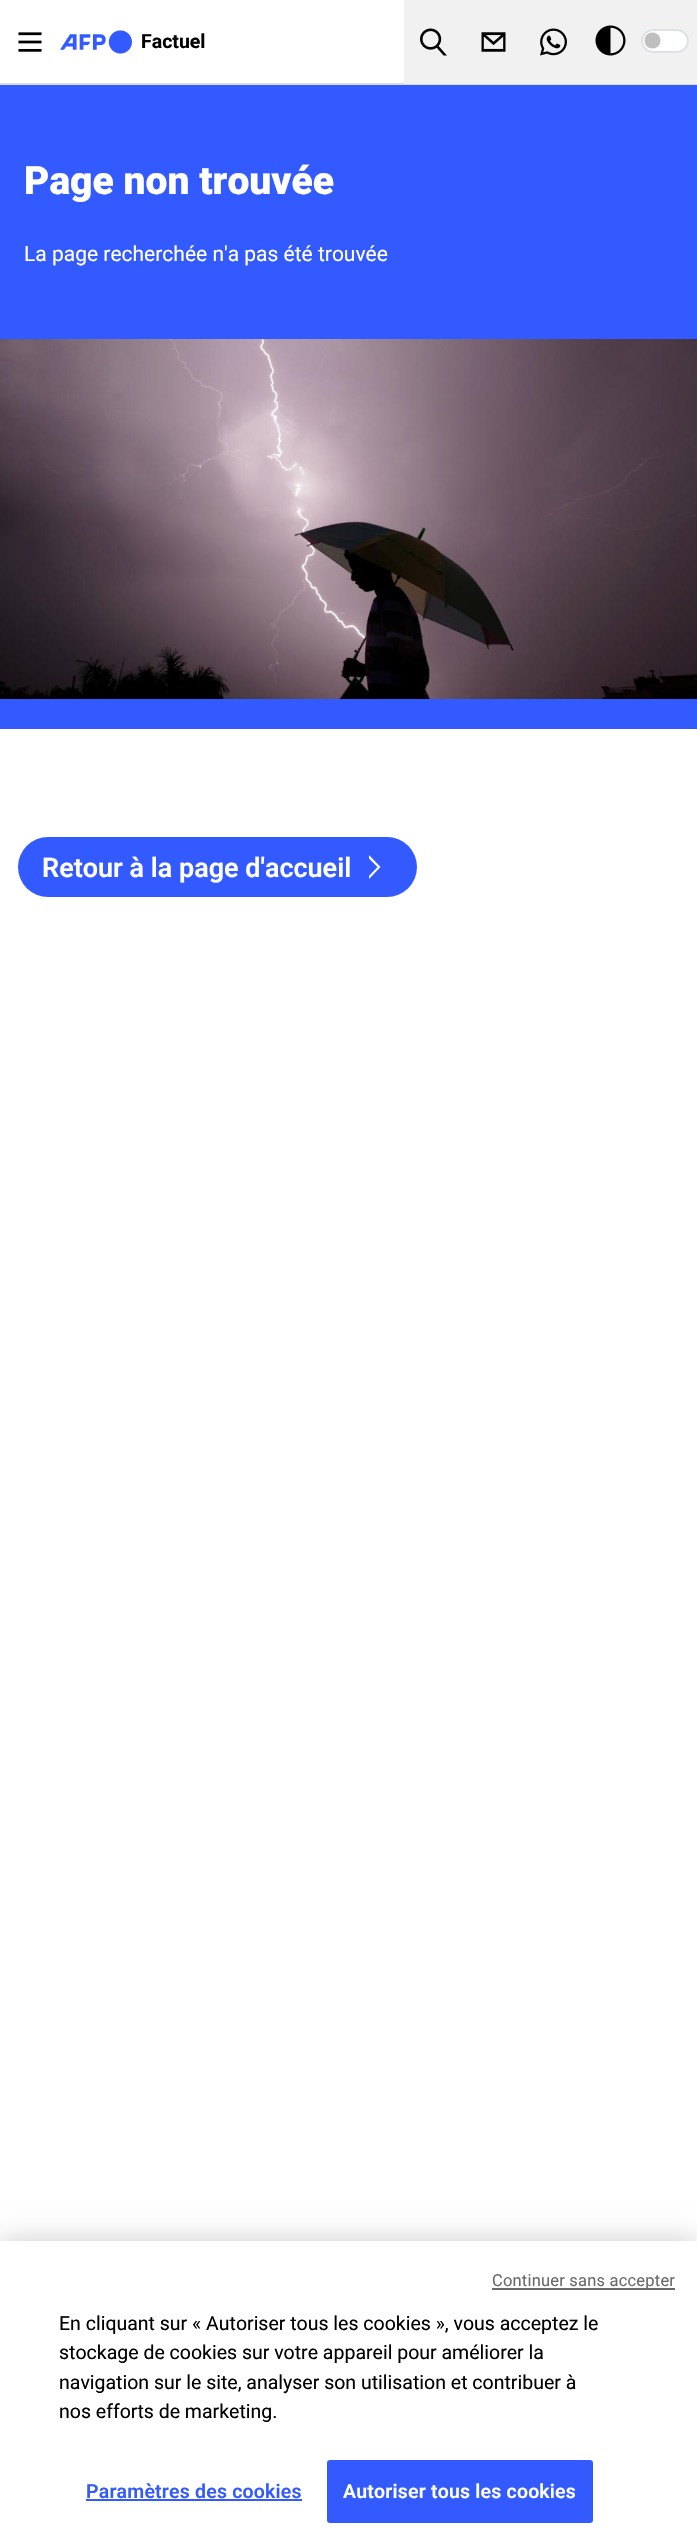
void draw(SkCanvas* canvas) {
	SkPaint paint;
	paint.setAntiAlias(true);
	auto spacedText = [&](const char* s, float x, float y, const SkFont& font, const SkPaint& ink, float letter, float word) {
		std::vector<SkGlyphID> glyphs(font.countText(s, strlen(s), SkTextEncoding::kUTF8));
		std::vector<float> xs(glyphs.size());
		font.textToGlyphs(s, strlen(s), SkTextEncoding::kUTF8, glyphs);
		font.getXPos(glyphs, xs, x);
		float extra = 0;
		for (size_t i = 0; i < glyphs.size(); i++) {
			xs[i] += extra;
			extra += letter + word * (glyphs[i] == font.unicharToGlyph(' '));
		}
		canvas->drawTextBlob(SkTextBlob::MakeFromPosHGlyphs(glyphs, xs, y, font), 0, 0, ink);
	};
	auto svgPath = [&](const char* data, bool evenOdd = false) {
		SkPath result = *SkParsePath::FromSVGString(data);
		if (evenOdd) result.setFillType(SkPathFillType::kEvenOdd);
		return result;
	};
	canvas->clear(0xffffffff);
	paint.setColor(0xffdddddd);
	canvas->drawRect(SkRect::MakeXYWH(0, 83, 697, 2), paint);
	canvas->drawImageRect(SkImages::DeferredFromEncodedData(SkData::MakeFromFileName("img1.png")), SkRect::MakeXYWH(18, 32, 24, 20), SkSamplingOptions());
	paint.setColor(0xfff1f1f1);
	canvas->drawRect(SkRect::MakeXYWH(404, 0, 293, 84), paint);
	canvas->drawImageRect(SkImages::DeferredFromEncodedData(SkData::MakeFromFileName("img2.png")), SkRect::MakeXYWH(420, 28, 27, 28), SkSamplingOptions());
	canvas->drawImageRect(SkImages::DeferredFromEncodedData(SkData::MakeFromFileName("img3.png")), SkRect::MakeXYWH(481, 32, 25, 20), SkSamplingOptions());
	canvas->drawImageRect(SkImages::DeferredFromEncodedData(SkData::MakeFromFileName("img4.png")), SkRect::MakeXYWH(540, 28, 27, 28), SkSamplingOptions());
	canvas->drawImageRect(SkImages::DeferredFromEncodedData(SkData::MakeFromFileName("img5.png")), SkRect::MakeXYWH(60, 30, 72, 24), SkSamplingOptions());
	SkFont f1(fontMgr->matchFamilyStyle("Roboto", SkFontStyle::Bold()), 19.5);
	f1.setSubpixel(true);
	paint.setColor(0xff000000);
	canvas->drawString("Factuel", 141, 48, f1, paint);
	canvas->drawImageRect(SkImages::DeferredFromEncodedData(SkData::MakeFromFileName("img6.png")), SkRect::MakeXYWH(595, 25, 31, 31), SkSamplingOptions());
	paint.setColor(0xffffffff);
	canvas->drawRoundRect(SkRect::MakeXYWH(641, 29, 48, 24), 12, 12, paint);
	paint.setColor(0xffbfbfbf);
	canvas->drawCircle(652.5, 40.5, 8, paint);
	paint.setStroke(true);
	paint.setStrokeWidth(2);
	paint.setColor(0xffdee2e6);
	canvas->drawRoundRect(SkRect::MakeXYWH(642, 30, 46, 22), 11, 11, paint);
	paint.setStroke(false);
	paint.setColor(0xff325aff);
	canvas->drawRect(SkRect::MakeXYWH(0, 85, 697, 644), paint);
	SkFont f2(fontMgr->matchFamilyStyle("Roboto", SkFontStyle(900, SkFontStyle::kNormal_Width, SkFontStyle::kUpright_Slant)), 39);
	f2.setSubpixel(true);
	paint.setColor(0xffffffff);
	canvas->drawString("Page non trouvée", 24, 194, f2, paint);
	SkFont f3(fontMgr->matchFamilyStyle("Roboto", SkFontStyle::Normal()), 21);
	f3.setSubpixel(true);
	canvas->drawString("La page recherchée n'a pas été trouvée", 24, 261, f3, paint);
	canvas->drawImageRect(SkImages::DeferredFromEncodedData(SkData::MakeFromFileName("img7.png")), SkRect::MakeXYWH(0, 339, 697, 360), SkSamplingOptions());
	paint.setColor(0xff325aff);
	canvas->drawRoundRect(SkRect::MakeXYWH(18, 837, 399, 60), 30, 30, paint);
	SkFont f4(fontMgr->matchFamilyStyle("Roboto", SkFontStyle(600, SkFontStyle::kNormal_Width, SkFontStyle::kUpright_Slant)), 27);
	f4.setSubpixel(true);
	paint.setColor(0xffffffff);
	canvas->drawString("Retour à la page d'accueil", 42, 877, f4, paint);
	canvas->drawPath(svgPath("M369 858.5L377.5 867L369 876V879L380.5 867L369 855Z", true), paint);
	paint.setColor(0x33000000);
	paint.setMaskFilter(SkMaskFilter::MakeBlur(kNormal_SkBlurStyle, 13.5));
	canvas->drawRect(SkRect::MakeXYWH(0, 2241, 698, 306), paint);
	paint.setMaskFilter(nullptr);
	paint.setColor(0xffffffff);
	canvas->drawRect(SkRect::MakeXYWH(0, 2241, 697, 306), paint);
	paint.setColor(0xff696969);
	canvas->drawRect(SkRect::MakeXYWH(492, 2288, 183, 2), paint);
	SkFont f5(fontMgr->matchFamilyStyle("Roboto", SkFontStyle::Normal()), 16.5);
	f5.setSubpixel(true);
	spacedText("Continuer sans accepter", 492, 2286, f5, paint, 0.2, 0);
	SkFont f6(fontMgr->matchFamilyStyle("Roboto", SkFontStyle::Normal()), 19.5);
	f6.setSubpixel(true);
	paint.setColor(0xff000000);
	canvas->drawString("En cliquant sur « Autoriser tous les cookies », vous acceptez le", 59, 2330, f6, paint);
	canvas->drawString("stockage de cookies sur votre appareil pour améliorer la", 59, 2359, f6, paint);
	canvas->drawString("navigation sur le site, analyser son utilisation et contribuer à", 59, 2389, f6, paint);
	canvas->drawString("nos efforts de marketing.", 59, 2418, f6, paint);
	SkFont f7(fontMgr->matchFamilyStyle("Roboto", SkFontStyle(600, SkFontStyle::kNormal_Width, SkFontStyle::kUpright_Slant)), 19.5);
	f7.setSubpixel(true);
	paint.setColor(0xff325aff);
	spacedText("Paramètres des cookies", 86, 2498, f7, paint, 0.2, 0);
	canvas->drawRect(SkRect::MakeXYWH(86, 2499, 216, 2), paint);
	canvas->drawRoundRect(SkRect::MakeXYWH(328, 2461, 264, 61), 2, 2, paint);
	paint.setStroke(true);
	canvas->drawRoundRect(SkRect::MakeXYWH(328, 2461, 264, 61), 2, 2, paint);
	paint.setStroke(false);
	paint.setColor(0xffffffff);
	spacedText("Autoriser tous les cookies", 343, 2498, f7, paint, 0.2, 0);
}
